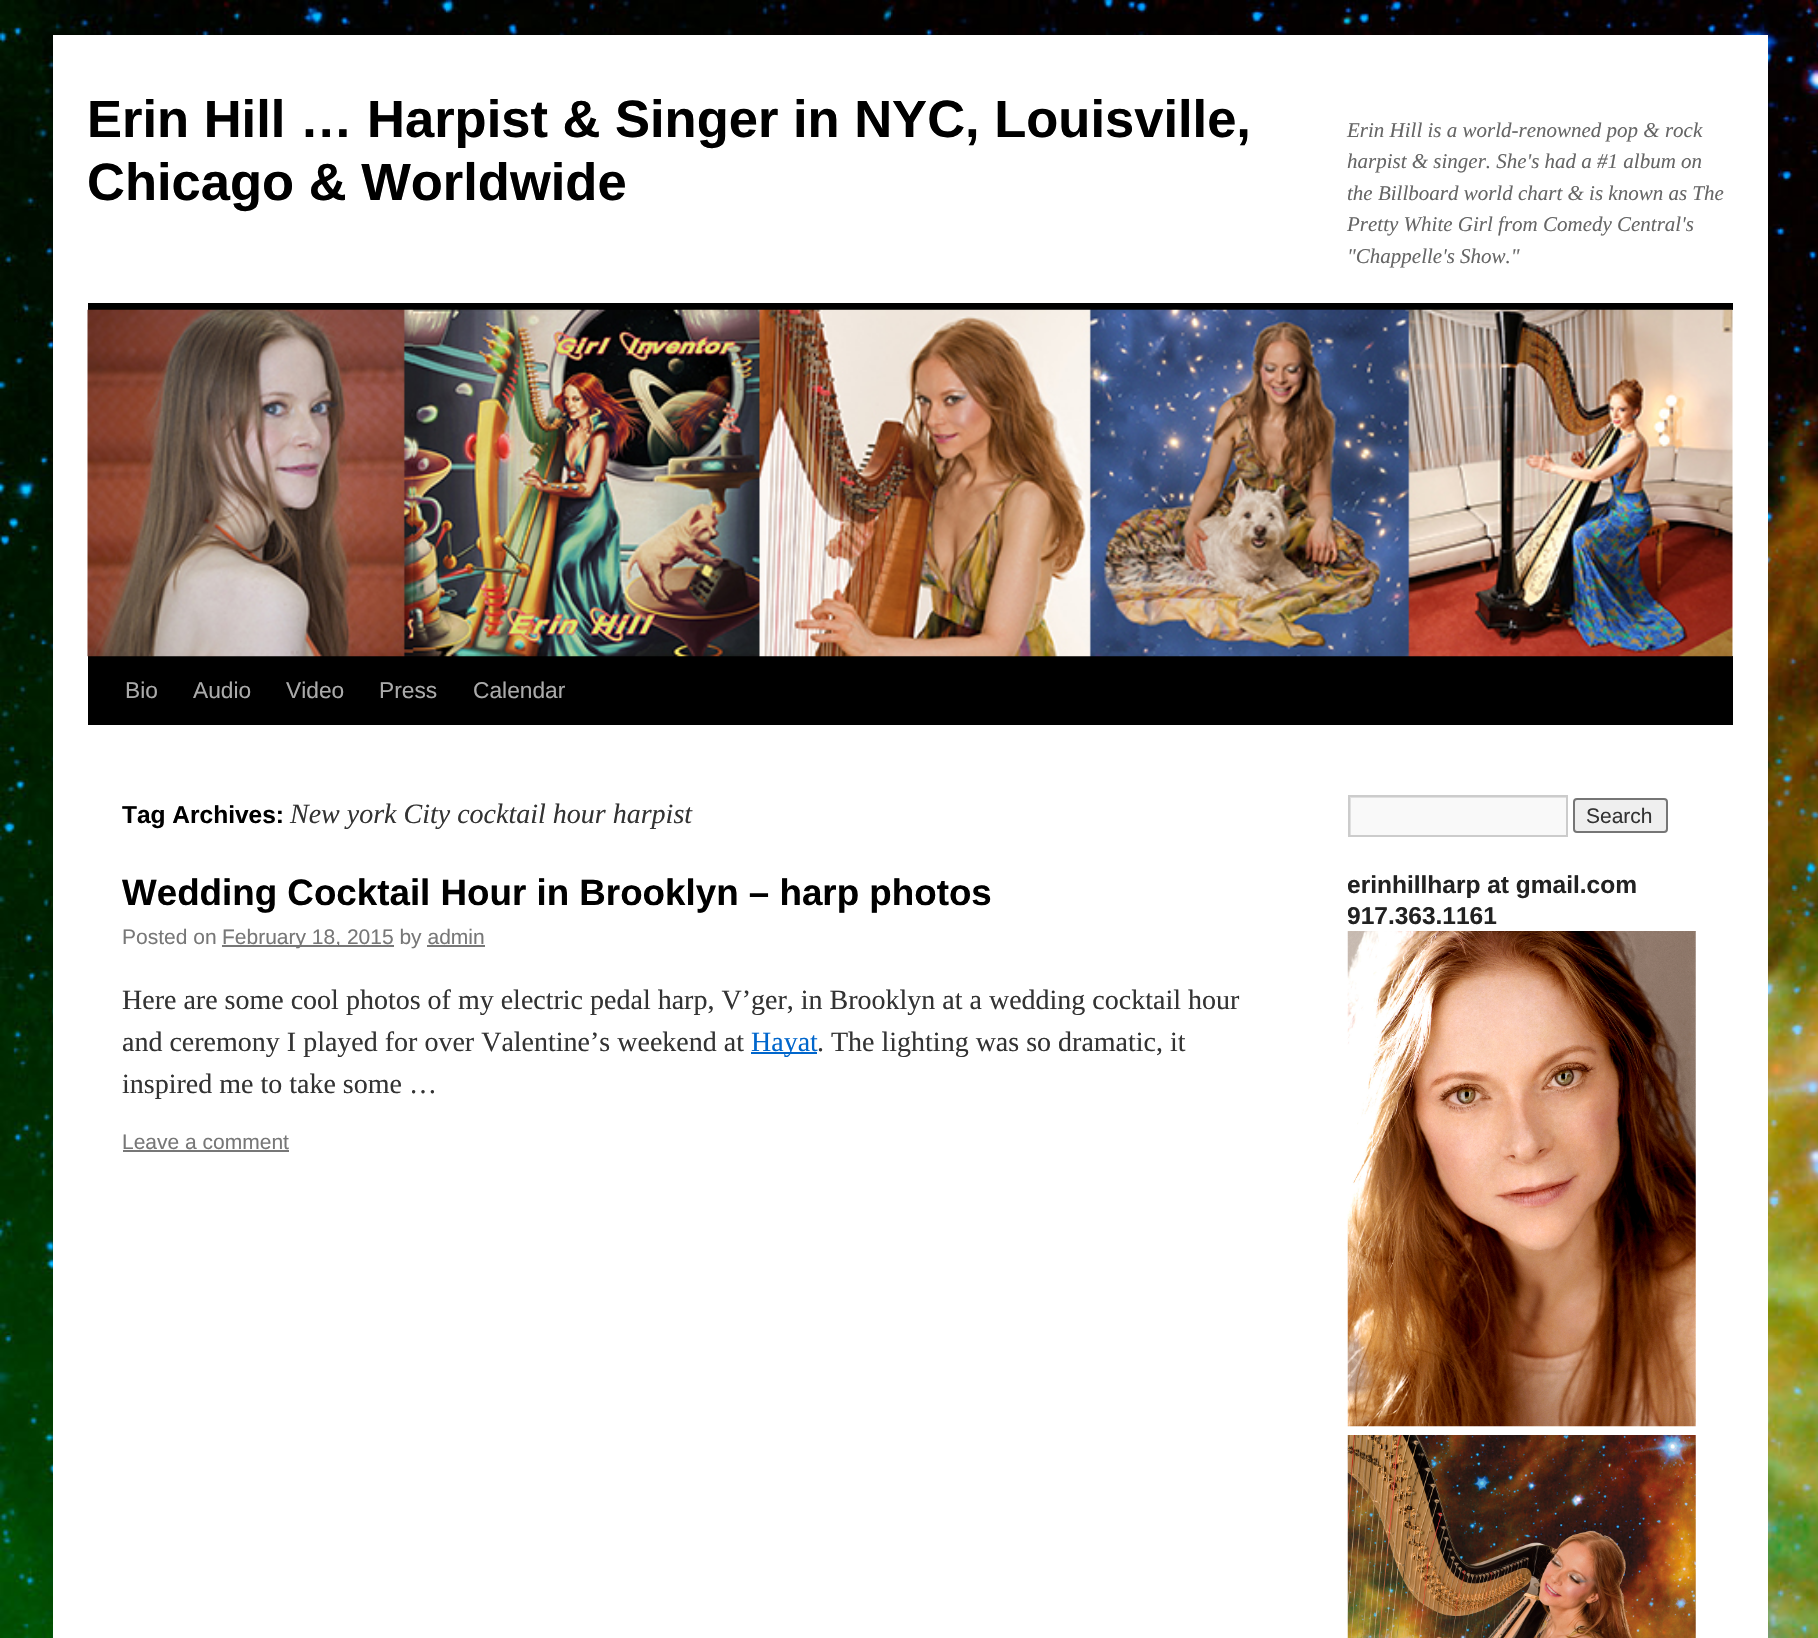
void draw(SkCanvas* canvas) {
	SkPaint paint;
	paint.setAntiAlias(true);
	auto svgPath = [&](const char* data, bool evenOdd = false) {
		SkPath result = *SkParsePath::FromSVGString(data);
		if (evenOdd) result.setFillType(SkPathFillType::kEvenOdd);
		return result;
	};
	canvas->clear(0xffffffff);
	canvas->drawImageRect(SkImages::DeferredFromEncodedData(SkData::MakeFromFileName("img1.png")), SkRect::MakeXYWH(0, 0, 1818, 1638), SkSamplingOptions());
	paint.setColor(0xffffffff);
	canvas->drawRect(SkRect::MakeXYWH(53, 35, 1715, 1603), paint);
	SkFont f1(fontMgr->matchFamilyStyle("Liberation Sans", SkFontStyle::Bold()), 52.5);
	f1.setSubpixel(true);
	paint.setColor(0xff000000);
	canvas->drawString("Erin Hill … Harpist & Singer in NYC, Louisville,", 87, 137, f1, paint);
	canvas->drawString("Chicago & Worldwide", 87, 200, f1, paint);
	SkFont f2(fontMgr->matchFamilyStyle("Liberation Serif", SkFontStyle::Italic()), 21);
	f2.setSubpixel(true);
	paint.setColor(0xff666666);
	canvas->drawString("Erin Hill is a world-renowned pop & rock", 1347, 137, f2, paint);
	canvas->drawString("harpist & singer. She's had a #1 album on", 1347, 168, f2, paint);
	canvas->drawString("the Billboard world chart & is known as The", 1347, 200, f2, paint);
	canvas->drawString("Pretty White Girl from Comedy Central's", 1347, 231, f2, paint);
	canvas->drawString("\"Chappelle's Show.\"", 1347, 263, f2, paint);
	paint.setColor(0xff000000);
	canvas->drawRect(SkRect::MakeXYWH(88, 303, 1645, 7), paint);
	canvas->drawRect(SkRect::MakeXYWH(88, 656, 1645, 69), paint);
	canvas->drawImageRect(SkImages::DeferredFromEncodedData(SkData::MakeFromFileName("img2.png")), SkRect::MakeXYWH(87, 309, 1646, 348), SkSamplingOptions());
	SkFont f3(fontMgr->matchFamilyStyle("Liberation Sans", SkFontStyle::Normal()), 22.75);
	f3.setSubpixel(true);
	paint.setColor(0xffaaaaaa);
	canvas->drawString("Bio", 125, 698, f3, paint);
	canvas->drawString("Audio", 193, 698, f3, paint);
	canvas->drawString("Video", 286, 698, f3, paint);
	canvas->drawString("Press", 379, 698, f3, paint);
	canvas->drawString("Calendar", 473, 698, f3, paint);
	SkFont f4(fontMgr->matchFamilyStyle("Liberation Sans", SkFontStyle::Bold()), 24.5);
	f4.setSubpixel(true);
	paint.setColor(0xff000000);
	canvas->drawString("Tag Archives:", 122, 823, f4, paint);
	SkFont f5(fontMgr->matchFamilyStyle("Liberation Serif", SkFontStyle::Italic()), 28);
	f5.setSubpixel(true);
	paint.setColor(0xff333333);
	canvas->drawString("New york City cocktail hour harpist", 290, 823, f5, paint);
	SkFont f6(fontMgr->matchFamilyStyle("Liberation Sans", SkFontStyle::Bold()), 36.75);
	f6.setSubpixel(true);
	paint.setColor(0xff000000);
	canvas->drawString("Wedding Cocktail Hour in Brooklyn – harp photos", 122, 905, f6, paint);
	SkFont f7(fontMgr->matchFamilyStyle("Liberation Sans", SkFontStyle::Normal()), 21);
	f7.setSubpixel(true);
	paint.setColor(0xff777777);
	canvas->drawString("Posted on", 122, 944, f7, paint);
	canvas->drawRect(SkRect::MakeXYWH(222, 945, 172, 2), paint);
	canvas->drawString("February 18, 2015 by admin", 222, 944, f7, paint);
	canvas->drawRect(SkRect::MakeXYWH(427, 945, 58, 2), paint);
	SkFont f8(fontMgr->matchFamilyStyle("Liberation Serif", SkFontStyle::Normal()), 28);
	f8.setSubpixel(true);
	paint.setColor(0xff333333);
	canvas->drawString("Here are some cool photos of my electric pedal harp, V’ger, in Brooklyn at a wedding cocktail hour", 122, 1009, f8, paint);
	canvas->drawString("and ceremony I played for over Valentine’s weekend at", 122, 1051, f8, paint);
	paint.setColor(0xff0066cc);
	canvas->drawRect(SkRect::MakeXYWH(751, 1052, 66, 2), paint);
	canvas->drawString("Hayat", 751, 1051, f8, paint);
	paint.setColor(0xff333333);
	canvas->drawString(". The lighting was so dramatic, it", 817, 1051, f8, paint);
	canvas->drawString("inspired me to take some …", 122, 1093, f8, paint);
	paint.setColor(0xff777777);
	canvas->drawString("Leave a comment", 122, 1149, f7, paint);
	canvas->drawRect(SkRect::MakeXYWH(123, 1150, 166, 2), paint);
	paint.setColor(0xfff9f9f9);
	canvas->drawRect(SkRect::MakeXYWH(1351, 798, 215, 37), paint);
	canvas->save();
	canvas->clipRect(SkRect::MakeXYWH(1349, 796, 217, 39));
	paint.setColor(0xffe0e0e0);
	canvas->drawPath(svgPath("M1176 623H1740V1008H1176ZM1351 798H1568V836H1351Z", true), paint);
	canvas->restore();
	paint.setStroke(true);
	paint.setStrokeWidth(2);
	paint.setColor(0xffcccccc);
	canvas->drawRect(SkRect::MakeXYWH(1349, 796, 218, 40), paint);
	paint.setStroke(false);
	paint.setColor(0xffefefef);
	canvas->drawRoundRect(SkRect::MakeXYWH(1574, 799, 93, 33), 3, 3, paint);
	paint.setStroke(true);
	paint.setColor(0xff767676);
	canvas->drawRoundRect(SkRect::MakeXYWH(1574, 799, 93, 33), 3, 3, paint);
	paint.setStroke(false);
	paint.setColor(0xff333333);
	canvas->drawString("Search", 1586, 823, f7, paint);
	canvas->save();
	canvas->clipRect(SkRect::MakeXYWH(1348, 795, 385, 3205));
	paint.setColor(0xff222222);
	canvas->drawString("erinhillharp at gmail.com", 1347, 893, f4, paint);
	canvas->drawString("917.363.1161", 1347, 924, f4, paint);
	canvas->restore();
	canvas->drawImageRect(SkImages::DeferredFromEncodedData(SkData::MakeFromFileName("img3.png")), SkRect::MakeXYWH(1347, 931, 349, 496), SkSamplingOptions());
	canvas->drawImageRect(SkImages::DeferredFromEncodedData(SkData::MakeFromFileName("img4.png")), SkRect::MakeXYWH(1347, 1435, 349, 203), SkSamplingOptions());
}
